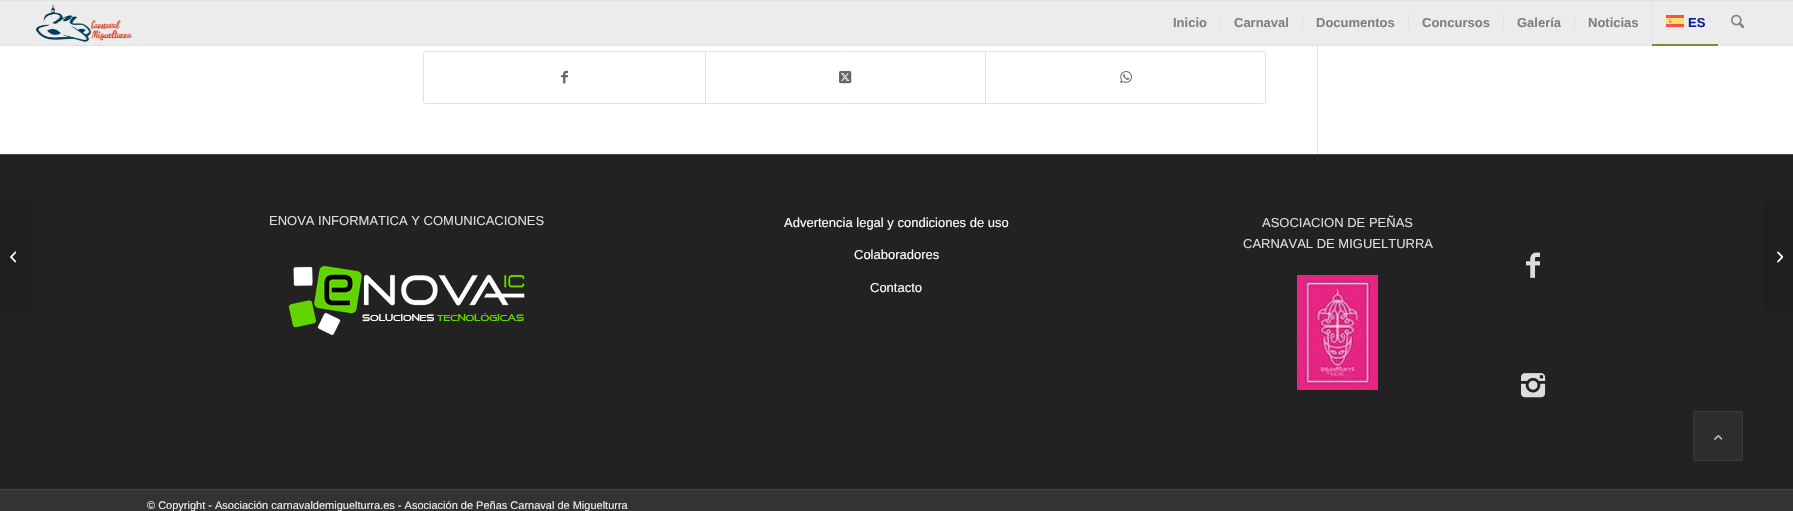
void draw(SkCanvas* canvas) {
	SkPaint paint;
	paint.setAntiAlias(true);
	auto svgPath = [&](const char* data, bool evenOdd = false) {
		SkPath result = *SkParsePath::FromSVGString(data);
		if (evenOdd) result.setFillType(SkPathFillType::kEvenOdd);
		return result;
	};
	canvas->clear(0xffffffff);
	paint.setColor(0xffececec);
	canvas->drawRect(SkRect::MakeXYWH(0, 1, 1793, 44), paint);
	paint.setColor(0xffebebeb);
	canvas->drawRect(SkRect::MakeXYWH(1317, 0, 1, 46), paint);
	paint.setColor(0xffe1e1e1);
	canvas->drawRect(SkRect::MakeXYWH(0, 0, 1793, 1), paint);
	canvas->drawRect(SkRect::MakeXYWH(0, 45, 1793, 1), paint);
	canvas->drawImageRect(SkImages::DeferredFromEncodedData(SkData::MakeFromFileName("img1.png")), SkRect::MakeXYWH(36, 4, 96, 38), SkSamplingOptions());
	SkFont f1(fontMgr->matchFamilyStyle("Liberation Sans", SkFontStyle::Bold()), 13);
	f1.setSubpixel(true);
	paint.setColor(0xff808080);
	canvas->drawString("Inicio", 1173, 27, f1, paint);
	canvas->drawString("Carnaval", 1234, 27, f1, paint);
	paint.setColor(0xffe1e1e1);
	canvas->drawRect(SkRect::MakeXYWH(1220, 15, 1, 15), paint);
	paint.setColor(0xff808080);
	canvas->drawString("Documentos", 1316, 27, f1, paint);
	paint.setColor(0xffe1e1e1);
	canvas->drawRect(SkRect::MakeXYWH(1302, 15, 1, 15), paint);
	paint.setColor(0xff808080);
	canvas->drawString("Concursos", 1422, 27, f1, paint);
	paint.setColor(0xffe1e1e1);
	canvas->drawRect(SkRect::MakeXYWH(1408, 15, 1, 15), paint);
	paint.setColor(0xff808080);
	canvas->drawString("Galería", 1517, 27, f1, paint);
	paint.setColor(0xffe1e1e1);
	canvas->drawRect(SkRect::MakeXYWH(1503, 15, 1, 15), paint);
	paint.setColor(0xff808080);
	canvas->drawString("Noticias", 1588, 27, f1, paint);
	paint.setColor(0xffe1e1e1);
	canvas->drawRect(SkRect::MakeXYWH(1574, 15, 1, 15), paint);
	canvas->drawRect(SkRect::MakeXYWH(1652, 1, 1, 44), paint);
	canvas->drawImageRect(SkImages::DeferredFromEncodedData(SkData::MakeFromFileName("img2.png")), SkRect::MakeXYWH(1666, 15, 18, 12), SkSamplingOptions());
	paint.setColor(0xff0c1c99);
	canvas->drawString("ES", 1688, 27, f1, paint);
	paint.setColor(0xff719430);
	canvas->drawRect(SkRect::MakeXYWH(1652, 44, 66, 2), paint);
	canvas->drawImageRect(SkImages::DeferredFromEncodedData(SkData::MakeFromFileName("img3.png")), SkRect::MakeXYWH(1731, 14, 13, 15), SkSamplingOptions());
	paint.setColor(0xff222222);
	canvas->drawRect(SkRect::MakeXYWH(0, 155, 1793, 334), paint);
	paint.setColor(0xff1f1f1f);
	canvas->drawPath(svgPath("M0 201H27C29 201 31 203 31 205V307C31 309 29 311 27 311H0Z"), paint);
	canvas->drawImageRect(SkImages::DeferredFromEncodedData(SkData::MakeFromFileName("img4.png")), SkRect::MakeXYWH(10, 251, 6, 12), SkSamplingOptions());
	paint.setColor(0xffe1e1e1);
	canvas->drawRect(SkRect::MakeXYWH(1317, 46, 1, 108), paint);
	paint.setStroke(true);
	paint.setStrokeWidth(1);
	canvas->drawRoundRect(SkRect::MakeXYWH(423.5, 51.5, 842, 52), 2.5, 2.5, paint);
	canvas->drawImageRect(SkImages::DeferredFromEncodedData(SkData::MakeFromFileName("img5.png")), SkRect::MakeXYWH(561, 70, 7, 14), SkSamplingOptions());
	paint.setStroke(false);
	canvas->drawRect(SkRect::MakeXYWH(705, 52, 1, 51), paint);
	canvas->drawImageRect(SkImages::DeferredFromEncodedData(SkData::MakeFromFileName("img6.png")), SkRect::MakeXYWH(839, 71, 13, 13), SkSamplingOptions());
	canvas->drawRect(SkRect::MakeXYWH(985, 52, 1, 51), paint);
	canvas->drawImageRect(SkImages::DeferredFromEncodedData(SkData::MakeFromFileName("img7.png")), SkRect::MakeXYWH(1120, 71, 12, 13), SkSamplingOptions());
	paint.setColor(0xff444444);
	canvas->drawRect(SkRect::MakeXYWH(0, 154, 1793, 1), paint);
	SkFont f2(fontMgr->matchFamilyStyle("Liberation Sans", SkFontStyle::Normal()), 13);
	f2.setSubpixel(true);
	paint.setColor(0xffdddddd);
	canvas->drawString("ENOVA INFORMATICA Y COMUNICACIONES", 269, 225, f2, paint);
	canvas->drawImageRect(SkImages::DeferredFromEncodedData(SkData::MakeFromFileName("img8.png")), SkRect::MakeXYWH(288, 265, 237, 71), SkSamplingOptions());
	paint.setColor(0xffffffff);
	canvas->drawString("Advertencia legal y condiciones de uso", 784, 227, f2, paint);
	canvas->drawString("Colaboradores", 854, 259, f2, paint);
	canvas->drawString("Contacto", 870, 292, f2, paint);
	paint.setColor(0xffdddddd);
	canvas->drawString("ASOCIACION DE PEÑAS", 1262, 227, f2, paint);
	canvas->drawString("CARNAVAL DE MIGUELTURRA", 1243, 248, f2, paint);
	canvas->drawImageRect(SkImages::DeferredFromEncodedData(SkData::MakeFromFileName("img9.png")), SkRect::MakeXYWH(1297, 275, 81, 115), SkSamplingOptions());
	canvas->drawImageRect(SkImages::DeferredFromEncodedData(SkData::MakeFromFileName("img10.png")), SkRect::MakeXYWH(1526, 252, 14, 26), SkSamplingOptions());
	canvas->drawImageRect(SkImages::DeferredFromEncodedData(SkData::MakeFromFileName("img11.png")), SkRect::MakeXYWH(1521, 373, 25, 25), SkSamplingOptions());
	paint.setColor(0xff333333);
	canvas->drawRect(SkRect::MakeXYWH(0, 490, 1793, 21), paint);
	paint.setColor(0xff444444);
	canvas->drawRect(SkRect::MakeXYWH(0, 489, 1793, 1), paint);
	SkFont f3(fontMgr->matchFamilyStyle("Liberation Sans", SkFontStyle::Normal()), 11);
	f3.setSubpixel(true);
	paint.setColor(0xffeeeeee);
	canvas->drawString("© Copyright - Asociación carnavaldemiguelturra.es - Asociación de Peñas Carnaval de Miguelturra", 147, 509, f3, paint);
	paint.setColor(0xff1f1f1f);
	canvas->drawPath(svgPath("M1766 201H1793V311H1766C1764 311 1762 309 1762 307V205C1762 203 1764 201 1766 201Z"), paint);
	canvas->drawImageRect(SkImages::DeferredFromEncodedData(SkData::MakeFromFileName("img12.png")), SkRect::MakeXYWH(1777, 251, 6, 12), SkSamplingOptions());
	paint.setColor(0xff2e2e2e);
	canvas->drawRoundRect(SkRect::MakeXYWH(1693.5, 411.5, 49, 49), 1.5, 1.5, paint);
	paint.setStroke(true);
	paint.setColor(0xff3a3a3a);
	canvas->drawRoundRect(SkRect::MakeXYWH(1693.5, 411.5, 49, 49), 1.5, 1.5, paint);
	canvas->drawImageRect(SkImages::DeferredFromEncodedData(SkData::MakeFromFileName("img13.png")), SkRect::MakeXYWH(1714, 435, 8, 5), SkSamplingOptions());
}
